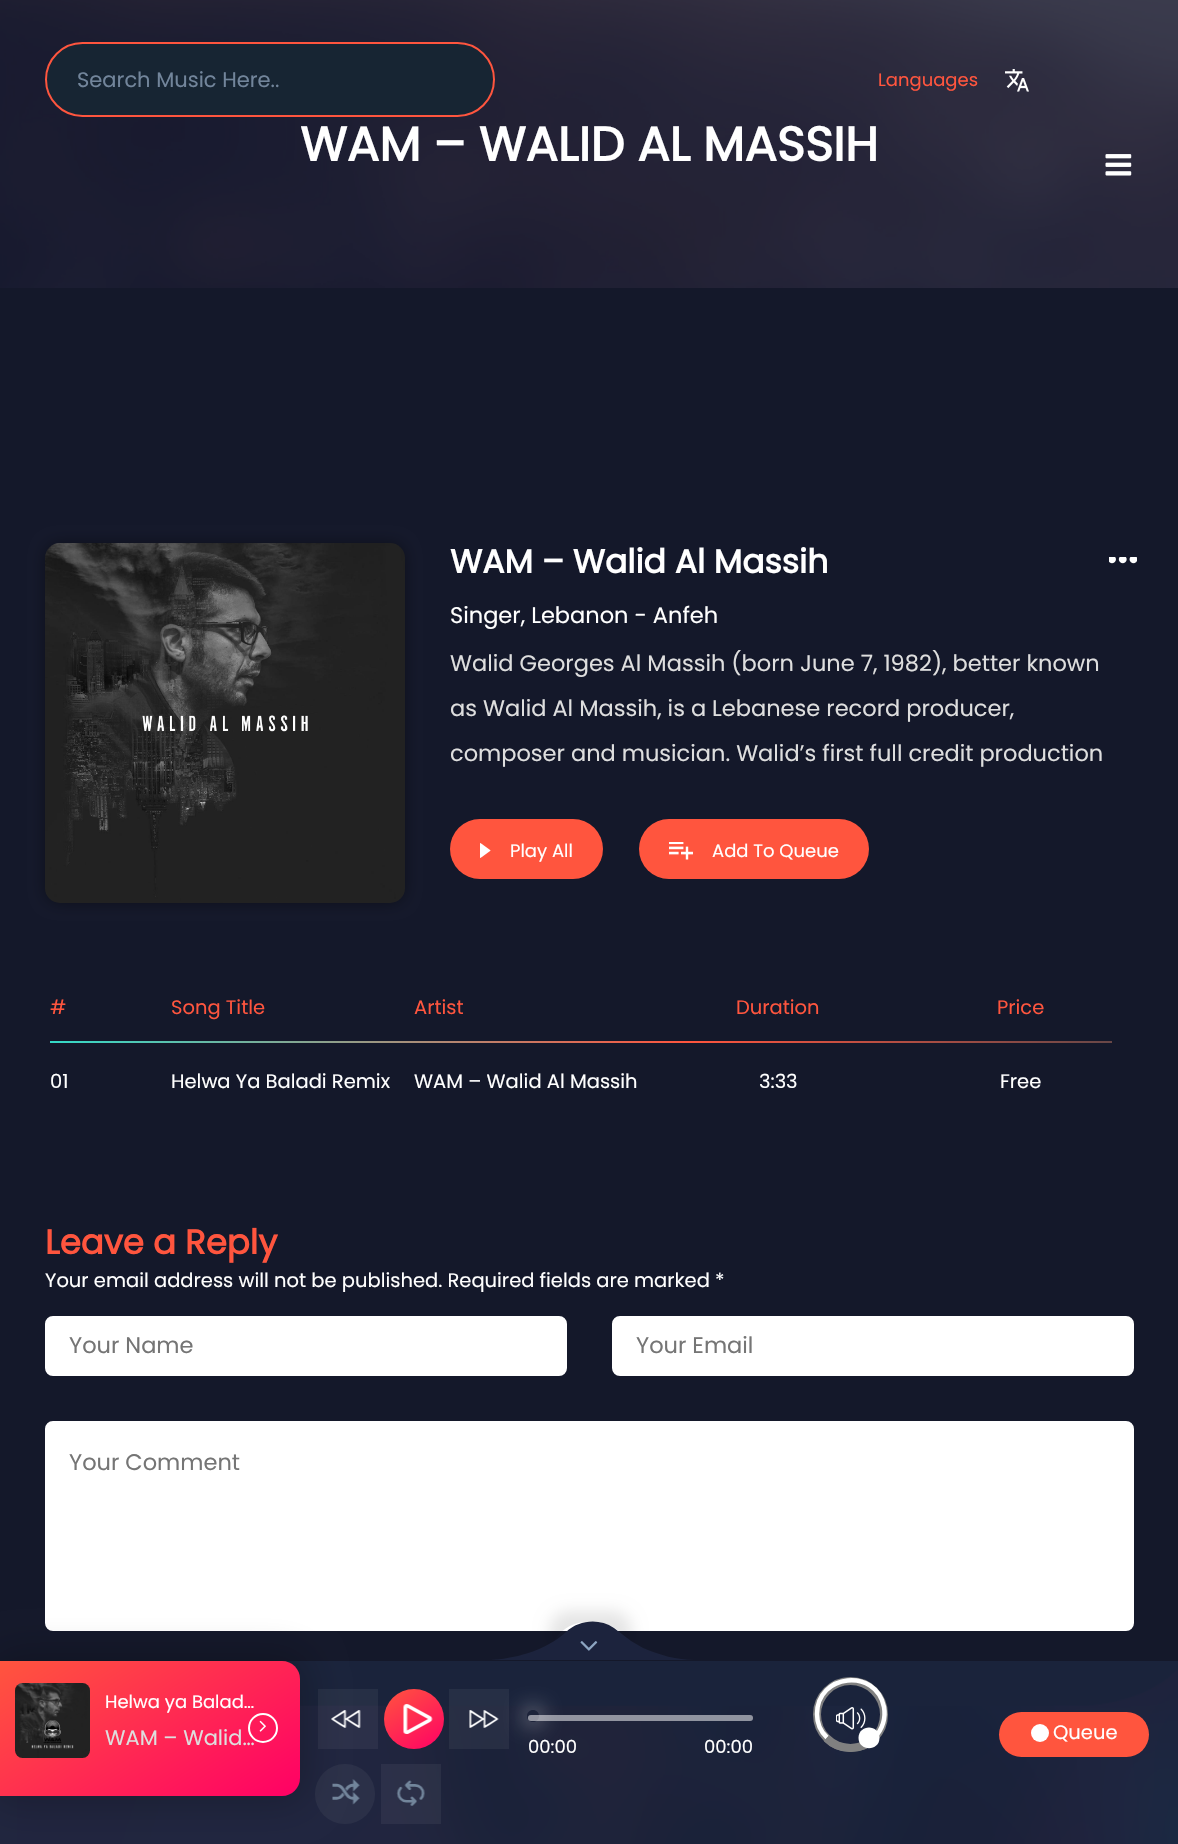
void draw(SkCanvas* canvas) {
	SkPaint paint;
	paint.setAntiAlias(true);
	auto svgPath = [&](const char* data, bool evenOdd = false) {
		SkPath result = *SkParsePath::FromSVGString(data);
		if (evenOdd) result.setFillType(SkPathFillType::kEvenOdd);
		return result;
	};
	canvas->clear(0xff14182a);
	canvas->drawImageRect(SkImages::DeferredFromEncodedData(SkData::MakeFromFileName("img2.png")), SkRect::MakeXYWH(0, 0, 1178, 288), SkSamplingOptions());
	paint.setColor(0xff172533);
	canvas->drawRoundRect(SkRect::MakeXYWH(46, 43, 448, 73), 36.5, 36.5, paint);
	paint.setStroke(true);
	paint.setStrokeWidth(2);
	paint.setColor(0xffff553e);
	canvas->drawRoundRect(SkRect::MakeXYWH(46, 43, 448, 73), 36.5, 36.5, paint);
	SkFont f1(fontMgr->matchFamilyStyle("Poppins", SkFontStyle::Normal()), 21);
	f1.setSubpixel(true);
	paint.setStroke(false);
	paint.setColor(0xff72859b);
	canvas->drawString("Search Music Here..", 77, 87, f1, paint);
	SkFont f2(fontMgr->matchFamilyStyle("Poppins", SkFontStyle::Normal()), 18);
	f2.setSubpixel(true);
	paint.setColor(0xffff553e);
	canvas->drawString("Languages", 878, 86, f2, paint);
	canvas->drawImageRect(SkImages::DeferredFromEncodedData(SkData::MakeFromFileName("img1.png")), SkRect::MakeXYWH(1005, 69, 24, 23), SkSamplingOptions());
	SkFont f3(fontMgr->matchFamilyStyle("Poppins", SkFontStyle::Bold()), 48);
	f3.setSubpixel(true);
	paint.setColor(0xffffffff);
	canvas->drawString("WAM – WALID AL MASSIH", 300, 161, f3, paint);
	paint.setColor(0x66040404);
	paint.setMaskFilter(SkMaskFilter::MakeBlur(kNormal_SkBlurStyle, 7.5));
	canvas->drawRoundRect(SkRect::MakeXYWH(45, 543, 360, 360), 15, 15, paint);
	paint.setMaskFilter(nullptr);
	canvas->drawImageRect(SkImages::DeferredFromEncodedData(SkData::MakeFromFileName("img3.png")), SkRect::MakeXYWH(45, 543, 360, 360), SkSamplingOptions());
	SkFont f4(fontMgr->matchFamilyStyle("Poppins", SkFontStyle::Bold()), 33);
	f4.setSubpixel(true);
	paint.setColor(0xffffffff);
	canvas->drawString("WAM – Walid Al Massih", 450, 573, f4, paint);
	SkFont f5(fontMgr->matchFamilyStyle("Poppins", SkFontStyle::Normal()), 22.5);
	f5.setSubpixel(true);
	canvas->drawString("Singer, Lebanon - Anfeh", 450, 623, f5, paint);
	paint.setColor(0xffdedede);
	canvas->drawString("Walid Georges Al Massih (born June 7, 1982), better known", 450, 671, f5, paint);
	canvas->drawString("as Walid Al Massih, is a Lebanese record producer,", 450, 716, f5, paint);
	canvas->drawString("composer and musician. Walid’s first full credit production", 450, 761, f5, paint);
	paint.setColor(0xffff553e);
	canvas->drawRoundRect(SkRect::MakeXYWH(450, 819, 153, 60), 30, 30, paint);
	canvas->drawImageRect(SkImages::DeferredFromEncodedData(SkData::MakeFromFileName("img4.png")), SkRect::MakeXYWH(480, 843, 11, 15), SkSamplingOptions());
	paint.setColor(0xffffffff);
	canvas->drawString("Play All", 510, 857, f2, paint);
	paint.setColor(0xffff553e);
	canvas->drawRoundRect(SkRect::MakeXYWH(639, 819, 230, 60), 30, 30, paint);
	canvas->drawImageRect(SkImages::DeferredFromEncodedData(SkData::MakeFromFileName("img5.png")), SkRect::MakeXYWH(669, 842, 24, 18), SkSamplingOptions());
	paint.setColor(0xffffffff);
	canvas->drawString("Add To Queue", 712, 857, f2, paint);
	canvas->drawImageRect(SkImages::DeferredFromEncodedData(SkData::MakeFromFileName("img6.png")), SkRect::MakeXYWH(1109, 557, 28, 7), SkSamplingOptions());
	SkFont f6(fontMgr->matchFamilyStyle("Poppins", SkFontStyle::Normal()), 19.5);
	f6.setSubpixel(true);
	paint.setColor(0xffff553e);
	canvas->drawString("#", 50, 1014, f6, paint);
	canvas->drawString("Song Title", 171, 1014, f6, paint);
	canvas->drawString("Artist", 414, 1014, f6, paint);
	canvas->drawString("Duration", 736, 1014, f6, paint);
	canvas->drawString("Price", 997, 1014, f6, paint);
	{
		const SkColor colors[] = {0xff34dac8, 0xffff553e, 0xff1c404c};
		const float stops[] = {0, 0.5, 1};
		const SkPoint ends[] = {{50, 1042}, {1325, 1042}};
		paint.setShader(SkGradientShader::MakeLinear(ends, colors, stops, 3, SkTileMode::kClamp));
		paint.setAlpha(255);
	}
	canvas->drawRect(SkRect::MakeXYWH(50, 1041, 1062, 2), paint);
	paint.setShader(nullptr);
	paint.setColor(0xffffffff);
	canvas->drawString("01", 50, 1088, f6, paint);
	canvas->drawString("Helwa Ya Baladi Remix", 171, 1088, f6, paint);
	canvas->drawString("WAM – Walid Al Massih", 414, 1088, f6, paint);
	canvas->drawString("3:33", 759, 1088, f6, paint);
	canvas->drawString("Free", 1000, 1088, f6, paint);
	SkFont f7(fontMgr->matchFamilyStyle("Poppins", SkFontStyle::Bold()), 34);
	f7.setSubpixel(true);
	paint.setColor(0xffff553e);
	canvas->drawString("Leave a Reply", 45, 1254, f7, paint);
	paint.setColor(0xffffffff);
	canvas->drawString("Your email address will not be published. Required fields are marked *", 45, 1287, f6, paint);
	canvas->drawRoundRect(SkRect::MakeXYWH(46, 1317, 520, 58), 7, 7, paint);
	paint.setStroke(true);
	canvas->drawRoundRect(SkRect::MakeXYWH(46, 1317, 520, 58), 7, 7, paint);
	paint.setStroke(false);
	paint.setColor(0xff757575);
	canvas->drawString("Your Name", 69, 1353, f5, paint);
	paint.setColor(0xffffffff);
	canvas->drawRoundRect(SkRect::MakeXYWH(613, 1317, 520, 58), 7, 7, paint);
	paint.setStroke(true);
	canvas->drawRoundRect(SkRect::MakeXYWH(613, 1317, 520, 58), 7, 7, paint);
	paint.setStroke(false);
	paint.setColor(0xff757575);
	canvas->drawString("Your Email", 636, 1353, f5, paint);
	paint.setColor(0xffffffff);
	canvas->drawRoundRect(SkRect::MakeXYWH(46, 1422, 1087, 208), 7, 7, paint);
	paint.setStroke(true);
	canvas->drawRoundRect(SkRect::MakeXYWH(46, 1422, 1087, 208), 7, 7, paint);
	paint.setStroke(false);
	paint.setColor(0xff757575);
	canvas->drawString("Your Comment", 69, 1470, f5, paint);
	paint.setColor(0xff17273e);
	canvas->drawRect(SkRect::MakeXYWH(0, 1661, 1178, 183), paint);
	canvas->drawImageRect(SkImages::DeferredFromEncodedData(SkData::MakeFromFileName("img7.png")), SkRect::MakeXYWH(0, 1669, 1178, 175), SkSamplingOptions());
	paint.setColor(0x991b2039);
	canvas->drawRect(SkRect::MakeXYWH(0, 1661, 1178, 183), paint);
	canvas->save();
	canvas->clipPath(svgPath("M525 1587H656V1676H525ZM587 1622H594C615 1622 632 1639 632 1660V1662H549V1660C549 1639 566 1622 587 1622Z", true), true);
	paint.setColor(0x1a000000);
	paint.setMaskFilter(SkMaskFilter::MakeBlur(kNormal_SkBlurStyle, 7.5));
	canvas->drawRoundRect(SkRect::MakeXYWH(549, 1611, 83, 41), 38, 38, paint);
	paint.setMaskFilter(nullptr);
	canvas->restore();
	paint.setColor(0xff1c233d);
	canvas->drawPath(svgPath("M566 1632C537 1659 490 1660 490 1660H694C677 1660 659 1655 643 1648L631 1641L614 1628C599 1618 579 1620 566 1632Z", true), paint);
	canvas->drawImageRect(SkImages::DeferredFromEncodedData(SkData::MakeFromFileName("img8.png")), SkRect::MakeXYWH(580, 1641, 18, 10), SkSamplingOptions());
	paint.setColor(0x0dffffff);
	canvas->drawRect(SkRect::MakeXYWH(318, 1689, 60, 60), paint);
	canvas->drawImageRect(SkImages::DeferredFromEncodedData(SkData::MakeFromFileName("img11.png")), SkRect::MakeXYWH(331, 1710, 30, 18), SkSamplingOptions());
	paint.setColor(0xff2b3048);
	canvas->drawCircle(345, 1794, 30, paint);
	canvas->drawImageRect(SkImages::DeferredFromEncodedData(SkData::MakeFromFileName("img15.png")), SkRect::MakeXYWH(332, 1779, 28, 26), SkSamplingOptions());
	paint.setColor(0x33040404);
	paint.setMaskFilter(SkMaskFilter::MakeBlur(kNormal_SkBlurStyle, 18));
	canvas->drawRoundRect(SkRect::MakeXYWH(-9, 1652, 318, 153), 27, 27, paint);
	paint.setMaskFilter(nullptr);
	{
		const SkColor colors[] = {0xffff553e, 0xffff0065};
		const float stops[] = {0, 1};
		const SkPoint ends[] = {{75, 1612}, {225, 1844}};
		paint.setShader(SkGradientShader::MakeLinear(ends, colors, stops, 2, SkTileMode::kClamp));
		paint.setAlpha(255);
	}
	canvas->drawPath(svgPath("M0 1661H282C292 1661 300 1669 300 1679V1778C300 1788 292 1796 282 1796H0Z"), paint);
	canvas->drawImageRect(SkImages::DeferredFromEncodedData(SkData::MakeFromFileName("img9.png")), SkRect::MakeXYWH(15, 1683, 75, 75), SkSamplingOptions());
	paint.setShader(nullptr);
	paint.setColor(0xffffffff);
	canvas->drawString("Helwa ya Balad…", 105, 1708, f2, paint);
	paint.setColor(0xffdedede);
	canvas->drawString("WAM – Walid…", 105, 1745, f1, paint);
	paint.setStroke(true);
	paint.setColor(0xffffffff);
	canvas->drawCircle(263, 1728, 14, paint);
	canvas->drawImageRect(SkImages::DeferredFromEncodedData(SkData::MakeFromFileName("img10.png")), SkRect::MakeXYWH(259, 1720, 7, 12), SkSamplingOptions());
	paint.setStroke(false);
	paint.setColor(0xffff553e);
	canvas->drawRoundRect(SkRect::MakeXYWH(999, 1712, 150, 45), 22.5, 22.5, paint);
	paint.setColor(0xffffffff);
	canvas->drawCircle(1040, 1733, 9, paint);
	canvas->drawString("Queue", 1053, 1739, f6, paint);
	{
		const SkColor colors[] = {0xffff553e, 0xffff0065};
		const float stops[] = {0, 1};
		const SkPoint ends[] = {{391, 1684}, {437, 1754}};
		paint.setShader(SkGradientShader::MakeLinear(ends, colors, stops, 2, SkTileMode::kClamp));
		paint.setAlpha(255);
	}
	canvas->drawCircle(414, 1719, 30, paint);
	canvas->drawImageRect(SkImages::DeferredFromEncodedData(SkData::MakeFromFileName("img12.png")), SkRect::MakeXYWH(403, 1704, 30, 30), SkSamplingOptions());
	paint.setShader(nullptr);
	paint.setColor(0x0dffffff);
	canvas->drawRect(SkRect::MakeXYWH(449, 1689, 60, 60), paint);
	canvas->drawImageRect(SkImages::DeferredFromEncodedData(SkData::MakeFromFileName("img13.png")), SkRect::MakeXYWH(469, 1710, 30, 18), SkSamplingOptions());
	paint.setColor(0x4dffffff);
	canvas->drawRoundRect(SkRect::MakeXYWH(528, 1715, 225, 6), 3, 3, paint);
	canvas->drawRoundRect(SkRect::MakeXYWH(528, 1715, 225, 6), 3, 3, paint);
	canvas->save();
	canvas->clipPath(svgPath("M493 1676H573V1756H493ZM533 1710C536.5 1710 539 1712.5 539 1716C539 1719.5 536.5 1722 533 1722C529.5 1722 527 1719.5 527 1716C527 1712.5 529.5 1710 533 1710Z", true), true);
	paint.setColor(0xffffffff);
	paint.setMaskFilter(SkMaskFilter::MakeBlur(kNormal_SkBlurStyle, 11));
	canvas->drawRoundRect(SkRect::MakeXYWH(527, 1710, 12, 12), 6, 6, paint);
	paint.setMaskFilter(nullptr);
	canvas->restore();
	canvas->drawString("00:00", 528, 1753, f2, paint);
	canvas->drawString("00:00", 704, 1753, f2, paint);
	paint.setStroke(true);
	paint.setStrokeWidth(8);
	paint.setColor(0xff808080);
	canvas->drawCircle(850.5, 1714.5, 33.5, paint);
	paint.setStrokeWidth(4.5);
	paint.setColor(0xffffffff);
	canvas->drawPath(svgPath("M827 1737.5C820.5 1731.5 817 1722.5 817 1714C817 1673.5 876 1667.5 884 1707C886 1718 882.5 1729.5 874.5 1737.5"), paint);
	canvas->drawImageRect(SkImages::DeferredFromEncodedData(SkData::MakeFromFileName("img14.png")), SkRect::MakeXYWH(836, 1707, 30, 23), SkSamplingOptions());
	paint.setStrokeWidth(7.5);
	paint.setColor(0xff808080);
	canvas->drawPath(svgPath("M874.5 1738.5C861.5 1751.5 839.5 1751.5 826.5 1738.5"), paint);
	paint.setStroke(false);
	paint.setColor(0xffffffff);
	canvas->drawPath(svgPath("M858.5 1738C858.5 1724 879.5 1724 879.5 1738C879.5 1751.5 858.5 1751.5 858.5 1738Z"), paint);
	paint.setColor(0x0dffffff);
	canvas->drawRect(SkRect::MakeXYWH(381, 1764, 60, 60), paint);
	canvas->drawImageRect(SkImages::DeferredFromEncodedData(SkData::MakeFromFileName("img16.png")), SkRect::MakeXYWH(396, 1780, 29, 26), SkSamplingOptions());
	canvas->drawImageRect(SkImages::DeferredFromEncodedData(SkData::MakeFromFileName("img17.png")), SkRect::MakeXYWH(1105, 154, 27, 22), SkSamplingOptions());
}
